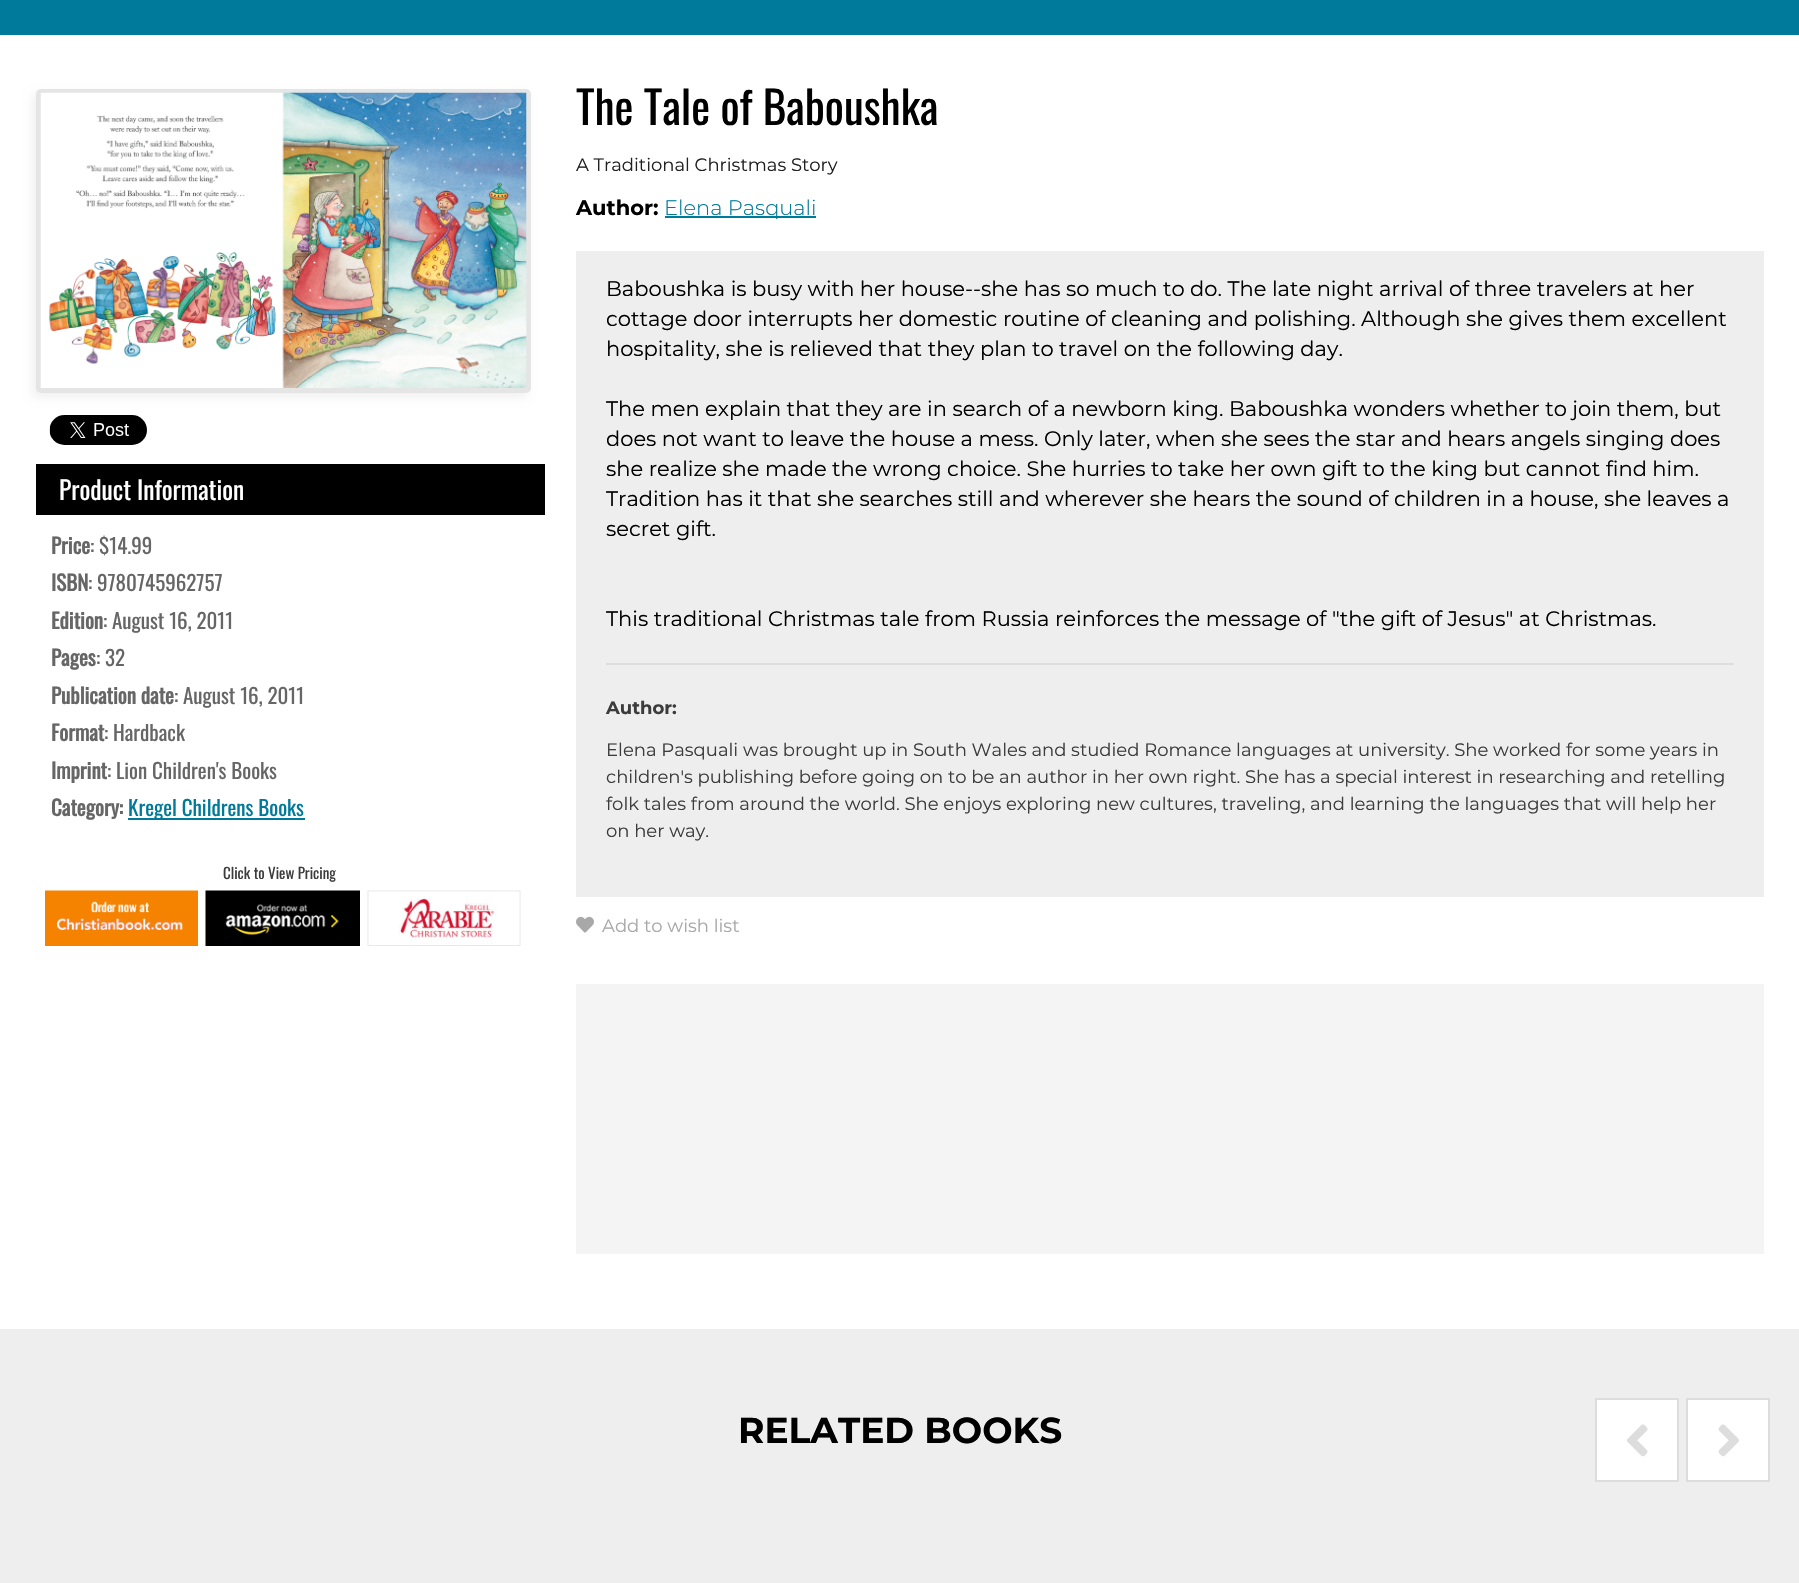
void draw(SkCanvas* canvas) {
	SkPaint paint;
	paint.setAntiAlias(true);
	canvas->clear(0xffffffff);
	paint.setColor(0xff007a9b);
	canvas->drawRect(SkRect::MakeXYWH(0, 0, 1799, 35), paint);
	paint.setColor(0x0d000000);
	paint.setMaskFilter(SkMaskFilter::MakeBlur(kNormal_SkBlurStyle, 4));
	canvas->drawRoundRect(SkRect::MakeXYWH(32, 93, 495, 305), 5, 5, paint);
	paint.setMaskFilter(nullptr);
	paint.setStroke(true);
	paint.setStrokeWidth(5);
	paint.setColor(0xffe5e5e5);
	canvas->drawRoundRect(SkRect::MakeXYWH(38.5, 91.5, 490, 299), 2.5, 2.5, paint);
	canvas->drawImageRect(SkImages::DeferredFromEncodedData(SkData::MakeFromFileName("img1.png")), SkRect::MakeXYWH(40, 92, 487, 296), SkSamplingOptions());
	canvas->drawImageRect(SkImages::DeferredFromEncodedData(SkData::MakeFromFileName("img2.png")), SkRect::MakeXYWH(49, 415, 98, 30), SkSamplingOptions());
	paint.setStroke(false);
	paint.setColor(0xff000000);
	canvas->drawRect(SkRect::MakeXYWH(36, 464, 509, 51), paint);
	SkFont f1(fontMgr->matchFamilyStyle("Oswald", SkFontStyle::Normal()), 25.5);
	f1.setSubpixel(true);
	paint.setColor(0xffffffff);
	canvas->drawString("Product Information", 59, 500, f1, paint);
	SkFont f2(fontMgr->matchFamilyStyle("Oswald", SkFontStyle::Bold()), 21);
	f2.setSubpixel(true);
	paint.setColor(0xff666666);
	canvas->drawString("Price", 51, 554, f2, paint);
	SkFont f3(fontMgr->matchFamilyStyle("Oswald", SkFontStyle::Normal()), 21);
	f3.setSubpixel(true);
	canvas->drawString(": $14.99", 90, 554, f3, paint);
	canvas->drawString("ISBN", 51, 591, f2, paint);
	canvas->drawString(": 9780745962757", 88, 591, f3, paint);
	canvas->drawString("Edition", 51, 629, f2, paint);
	canvas->drawString(": August 16, 2011", 103, 629, f3, paint);
	canvas->drawString("Pages", 51, 666, f2, paint);
	canvas->drawString(": 32", 96, 666, f3, paint);
	canvas->drawString("Publication date", 51, 704, f2, paint);
	canvas->drawString(": August 16, 2011", 174, 704, f3, paint);
	canvas->drawString("Format", 51, 741, f2, paint);
	canvas->drawString(": Hardback", 104, 741, f3, paint);
	canvas->drawString("Imprint", 51, 779, f2, paint);
	canvas->drawString(": Lion Children's Books", 107, 779, f3, paint);
	canvas->drawString("Category:", 51, 816, f2, paint);
	paint.setColor(0xff007a9b);
	canvas->drawRect(SkRect::MakeXYWH(128, 818, 177, 2), paint);
	canvas->drawString("Kregel Childrens Books", 128, 816, f3, paint);
	SkFont f4(fontMgr->matchFamilyStyle("Oswald", SkFontStyle::Normal()), 15);
	f4.setSubpixel(true);
	paint.setColor(0xff3c3c3c);
	canvas->drawString("Click to View Pricing", 223, 879, f4, paint);
	canvas->drawImageRect(SkImages::DeferredFromEncodedData(SkData::MakeFromFileName("img3.png")), SkRect::MakeXYWH(45, 890, 153, 56), SkSamplingOptions());
	canvas->drawImageRect(SkImages::DeferredFromEncodedData(SkData::MakeFromFileName("img4.png")), SkRect::MakeXYWH(205, 890, 155, 56), SkSamplingOptions());
	canvas->drawImageRect(SkImages::DeferredFromEncodedData(SkData::MakeFromFileName("img5.png")), SkRect::MakeXYWH(367, 890, 154, 56), SkSamplingOptions());
	SkFont f5(fontMgr->matchFamilyStyle("Oswald", SkFontStyle::Normal()), 45);
	f5.setSubpixel(true);
	paint.setColor(0xff000000);
	canvas->drawString("The Tale of Baboushka", 576, 125, f5, paint);
	SkFont f6(fontMgr->matchFamilyStyle("Montserrat", SkFontStyle::Normal()), 18);
	f6.setSubpixel(true);
	paint.setColor(0xff202020);
	canvas->drawString("A Traditional Christmas Story", 576, 171, f6, paint);
	SkFont f7(fontMgr->matchFamilyStyle("Montserrat", SkFontStyle::Bold()), 21);
	f7.setSubpixel(true);
	paint.setColor(0xff000000);
	canvas->drawString("Author:", 576, 215, f7, paint);
	paint.setColor(0xff007a9b);
	canvas->drawRect(SkRect::MakeXYWH(665, 216, 151, 2), paint);
	SkFont f8(fontMgr->matchFamilyStyle("Montserrat", SkFontStyle(300, SkFontStyle::kNormal_Width, SkFontStyle::kUpright_Slant)), 21);
	f8.setSubpixel(true);
	canvas->drawString("Elena Pasquali", 664, 215, f8, paint);
	paint.setColor(0xffeeeeee);
	canvas->drawRect(SkRect::MakeXYWH(576, 251, 1188, 646), paint);
	SkFont f9(fontMgr->matchFamilyStyle("Montserrat", SkFontStyle::Normal()), 21);
	f9.setSubpixel(true);
	paint.setColor(0xff000000);
	canvas->drawString("Baboushka is busy with her house--she has so much to do. The late night arrival of three travelers at her", 606, 296, f9, paint);
	canvas->drawString("cottage door interrupts her domestic routine of cleaning and polishing. Although she gives them excellent", 606, 326, f9, paint);
	canvas->drawString("hospitality, she is relieved that they plan to travel on the following day.", 606, 356, f9, paint);
	canvas->drawString("The men explain that they are in search of a newborn king. Baboushka wonders whether to join them, but", 606, 416, f9, paint);
	canvas->drawString("does not want to leave the house a mess. Only later, when she sees the star and hears angels singing does", 606, 446, f9, paint);
	canvas->drawString("she realize she made the wrong choice. She hurries to take her own gift to the king but cannot find him.", 606, 476, f9, paint);
	canvas->drawString("Tradition has it that she searches still and wherever she hears the sound of children in a house, she leaves a", 606, 506, f9, paint);
	canvas->drawString("secret gift.", 606, 536, f9, paint);
	canvas->drawString("This traditional Christmas tale from Russia reinforces the message of \"the gift of Jesus\" at Christmas.", 606, 626, f9, paint);
	paint.setColor(0xffdddddd);
	canvas->drawRect(SkRect::MakeXYWH(606, 663, 1128, 2), paint);
	SkFont f10(fontMgr->matchFamilyStyle("Montserrat", SkFontStyle::Bold()), 18);
	f10.setSubpixel(true);
	paint.setColor(0xff3c3c3c);
	canvas->drawString("Author:", 606, 714, f10, paint);
	canvas->drawString("Elena Pasquali was brought up in South Wales and studied Romance languages at university. She worked for some years in", 606, 756, f6, paint);
	canvas->drawString("children's publishing before going on to be an author in her own right. She has a special interest in researching and retelling", 606, 783, f6, paint);
	canvas->drawString("folk tales from around the world. She enjoys exploring new cultures, traveling, and learning the languages that will help her", 606, 810, f6, paint);
	canvas->drawString("on her way.", 606, 837, f6, paint);
	canvas->drawImageRect(SkImages::DeferredFromEncodedData(SkData::MakeFromFileName("img6.png")), SkRect::MakeXYWH(576, 916, 18, 17), SkSamplingOptions());
	paint.setColor(0xffa8a8a8);
	canvas->drawString("Add to wish list", 602, 932, f6, paint);
	paint.setColor(0xfff4f4f4);
	canvas->drawRect(SkRect::MakeXYWH(576, 984, 1188, 270), paint);
	paint.setColor(0xffeeeeee);
	canvas->drawRect(SkRect::MakeXYWH(0, 1329, 1799, 254), paint);
	SkFont f11(fontMgr->matchFamilyStyle("Montserrat", SkFontStyle::Bold()), 36);
	f11.setSubpixel(true);
	paint.setColor(0xff000000);
	canvas->drawString("RELATED BOOKS", 738, 1443, f11, paint);
	paint.setColor(0xffffffff);
	canvas->drawRect(SkRect::MakeXYWH(1596, 1399, 82, 82), paint);
	paint.setStroke(true);
	paint.setStrokeWidth(2);
	paint.setColor(0xffdddddd);
	canvas->drawRect(SkRect::MakeXYWH(1596, 1399, 82, 82), paint);
	canvas->drawImageRect(SkImages::DeferredFromEncodedData(SkData::MakeFromFileName("img7.png")), SkRect::MakeXYWH(1627, 1424, 21, 33), SkSamplingOptions());
	paint.setStroke(false);
	paint.setColor(0xffffffff);
	canvas->drawRect(SkRect::MakeXYWH(1687, 1399, 82, 82), paint);
	paint.setStroke(true);
	paint.setColor(0xffdddddd);
	canvas->drawRect(SkRect::MakeXYWH(1687, 1399, 82, 82), paint);
	canvas->drawImageRect(SkImages::DeferredFromEncodedData(SkData::MakeFromFileName("img8.png")), SkRect::MakeXYWH(1718, 1424, 21, 33), SkSamplingOptions());
}
